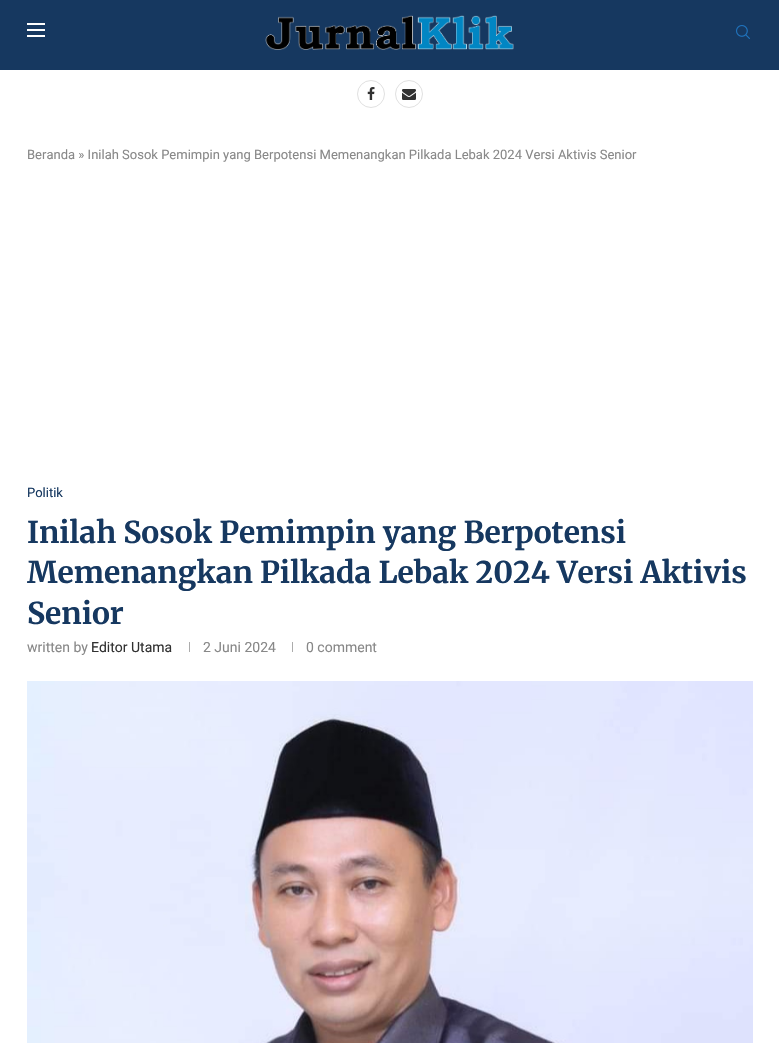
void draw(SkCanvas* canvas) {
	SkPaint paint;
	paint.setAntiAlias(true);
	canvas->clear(0xffffffff);
	paint.setColor(0xff163860);
	canvas->drawRect(SkRect::MakeXYWH(0, 0, 779, 70), paint);
	paint.setColor(0xffffffff);
	canvas->drawRect(SkRect::MakeXYWH(27, 23, 18, 2), paint);
	canvas->drawRect(SkRect::MakeXYWH(27, 29, 18, 2), paint);
	canvas->drawRect(SkRect::MakeXYWH(27, 35, 18, 2), paint);
	canvas->drawImageRect(SkImages::DeferredFromEncodedData(SkData::MakeFromFileName("img1.png")), SkRect::MakeXYWH(265, 15, 249, 35), SkSamplingOptions());
	canvas->drawImageRect(SkImages::DeferredFromEncodedData(SkData::MakeFromFileName("img2.png")), SkRect::MakeXYWH(736, 25, 14, 14), SkSamplingOptions());
	paint.setStroke(true);
	paint.setStrokeWidth(1);
	paint.setColor(0xffe0e0e0);
	canvas->drawCircle(371, 94, 13.5, paint);
	canvas->drawImageRect(SkImages::DeferredFromEncodedData(SkData::MakeFromFileName("img3.png")), SkRect::MakeXYWH(367, 87, 8, 13), SkSamplingOptions());
	canvas->drawCircle(409, 94, 13.5, paint);
	canvas->drawImageRect(SkImages::DeferredFromEncodedData(SkData::MakeFromFileName("img4.png")), SkRect::MakeXYWH(402, 89, 14, 11), SkSamplingOptions());
	SkFont f1(fontMgr->matchFamilyStyle("Roboto", SkFontStyle::Normal()), 13);
	f1.setSubpixel(true);
	paint.setStroke(false);
	paint.setColor(0xff888888);
	canvas->drawString("Beranda » Inilah Sosok Pemimpin yang Berpotensi Memenangkan Pilkada Lebak 2024 Versi Aktivis Senior", 27, 159, f1, paint);
	paint.setColor(0xff163860);
	canvas->drawString("Politik", 27, 497, f1, paint);
	SkFont f2(fontMgr->matchFamilyStyle("Merriweather", SkFontStyle::Bold()), 30);
	f2.setSubpixel(true);
	canvas->drawString("Inilah Sosok Pemimpin yang Berpotensi", 27, 543, f2, paint);
	canvas->drawString("Memenangkan Pilkada Lebak 2024 Versi Aktivis", 27, 583, f2, paint);
	canvas->drawString("Senior", 27, 624, f2, paint);
	SkFont f3(fontMgr->matchFamilyStyle("Roboto", SkFontStyle::Normal()), 14);
	f3.setSubpixel(true);
	paint.setColor(0xff888888);
	canvas->drawString("written by", 27, 652, f3, paint);
	paint.setColor(0xff313131);
	canvas->drawString("Editor Utama", 91, 652, f3, paint);
	paint.setColor(0xffacacac);
	canvas->drawRect(SkRect::MakeXYWH(189, 642, 1, 10), paint);
	paint.setColor(0xff888888);
	canvas->drawString("2 Juni 2024", 203, 652, f3, paint);
	paint.setColor(0xffacacac);
	canvas->drawRect(SkRect::MakeXYWH(292, 642, 1, 10), paint);
	paint.setColor(0xff888888);
	canvas->drawString("0 comment", 306, 652, f3, paint);
	canvas->drawImageRect(SkImages::DeferredFromEncodedData(SkData::MakeFromFileName("img5.png")), SkRect::MakeXYWH(27, 681, 726, 362), SkSamplingOptions());
}
